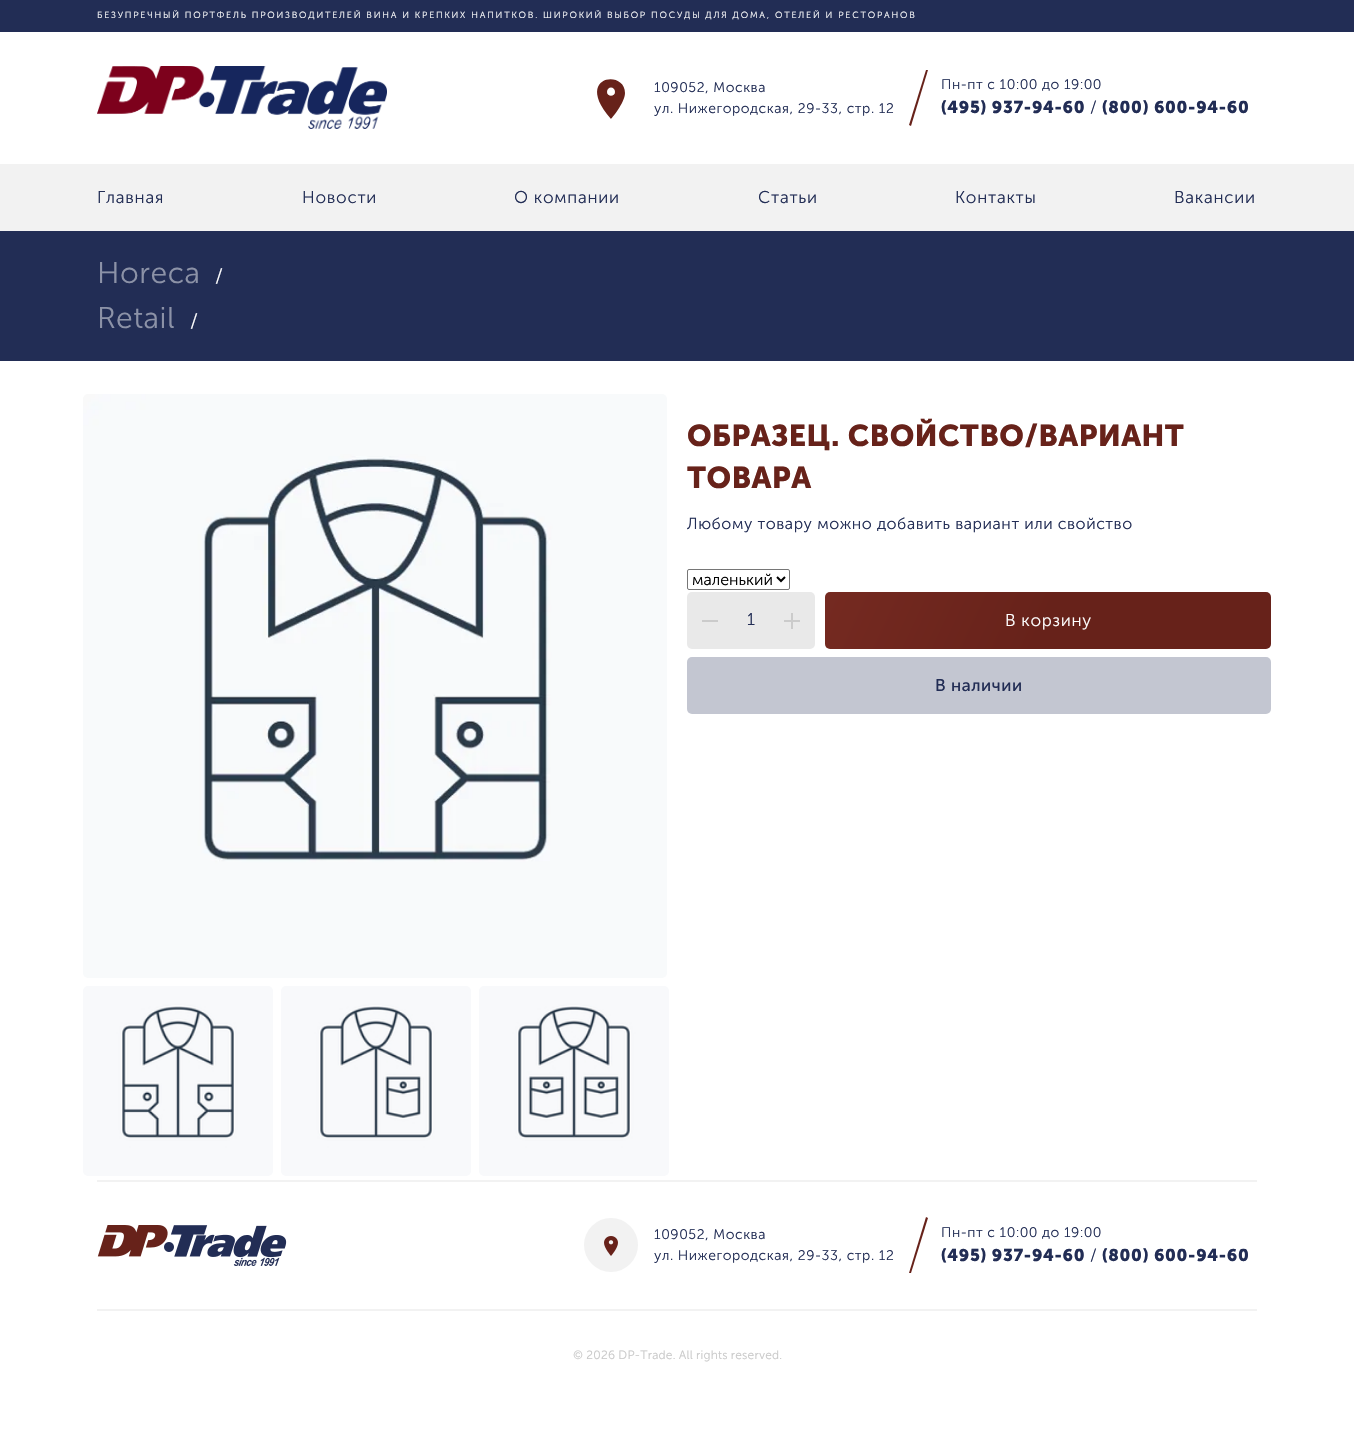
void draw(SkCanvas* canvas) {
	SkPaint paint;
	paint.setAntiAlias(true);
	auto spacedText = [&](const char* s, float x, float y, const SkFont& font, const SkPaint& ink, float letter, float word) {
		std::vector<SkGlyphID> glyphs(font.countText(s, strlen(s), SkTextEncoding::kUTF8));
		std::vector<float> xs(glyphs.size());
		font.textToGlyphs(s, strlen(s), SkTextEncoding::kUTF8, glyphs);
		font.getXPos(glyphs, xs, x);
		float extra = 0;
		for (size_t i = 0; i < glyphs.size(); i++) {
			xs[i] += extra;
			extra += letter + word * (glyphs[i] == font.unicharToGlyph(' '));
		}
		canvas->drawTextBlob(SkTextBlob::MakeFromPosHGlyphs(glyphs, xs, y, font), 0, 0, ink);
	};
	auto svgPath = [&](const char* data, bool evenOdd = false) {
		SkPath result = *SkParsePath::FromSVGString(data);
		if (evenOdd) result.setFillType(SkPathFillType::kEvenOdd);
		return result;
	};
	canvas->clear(0xffffffff);
	paint.setColor(0xff222d55);
	canvas->drawRect(SkRect::MakeXYWH(0, 0, 1354, 32), paint);
	SkFont f1(fontMgr->matchFamilyStyle("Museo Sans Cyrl", SkFontStyle(300, SkFontStyle::kNormal_Width, SkFontStyle::kUpright_Slant)), 9);
	f1.setSubpixel(true);
	paint.setColor(0xffffffff);
	spacedText("БЕЗУПРЕЧНЫЙ ПОРТФЕЛЬ ПРОИЗВОДИТЕЛЕЙ ВИНА И КРЕПКИХ НАПИТКОВ. ШИРОКИЙ ВЫБОР ПОСУДЫ ДЛЯ ДОМА, ОТЕЛЕЙ И РЕСТОРАНОВ", 97, 18, f1, paint, 1.8, 0);
	canvas->drawImageRect(SkImages::DeferredFromEncodedData(SkData::MakeFromFileName("img1.png")), SkRect::MakeXYWH(97, 66, 290, 63), SkSamplingOptions());
	paint.setColor(0xff67221a);
	canvas->drawPath(svgPath("M625 93C625 103 611 119 611 119C573 76 625 69 625 93ZM607 92C607 97 615 97 615 92C615 86 607 86 607 92Z"), paint);
	SkFont f2(fontMgr->matchFamilyStyle("Museo Sans Cyrl", SkFontStyle(300, SkFontStyle::kNormal_Width, SkFontStyle::kUpright_Slant)), 14);
	f2.setSubpixel(true);
	paint.setColor(0xff222d55);
	spacedText("109052, Москва", 654, 92, f2, paint, 0.55, 0);
	spacedText("ул. Нижегородская, 29-33, стр. 12", 654, 113, f2, paint, 0.55, 0);
	paint.setColor(0xff67221a);
	canvas->drawPath(svgPath("M926 70H928L911 126L909 125Z"), paint);
	paint.setColor(0xff222d55);
	spacedText("Пн-пт с 10:00 до 19:00", 941, 89, f2, paint, 0.55, 0);
	SkFont f3(fontMgr->matchFamilyStyle("Museo Sans Cyrl", SkFontStyle::Bold()), 17);
	f3.setSubpixel(true);
	spacedText("(495) 937-94-60", 941, 113, f3, paint, 0.7, 0);
	SkFont f4(fontMgr->matchFamilyStyle("Museo Sans Cyrl", SkFontStyle(300, SkFontStyle::kNormal_Width, SkFontStyle::kUpright_Slant)), 17);
	f4.setSubpixel(true);
	spacedText("/", 1090, 113, f4, paint, 0.7, 0);
	spacedText("(800) 600-94-60", 1102, 113, f3, paint, 0.7, 0);
	paint.setColor(0xfff2f2f2);
	canvas->drawRect(SkRect::MakeXYWH(0, 164, 1354, 67), paint);
	paint.setColor(0xff222d55);
	spacedText("Главная", 97, 203, f4, paint, 0.75, 0);
	spacedText("Новости", 302, 203, f4, paint, 0.75, 0);
	spacedText("О компании", 514, 203, f4, paint, 0.75, 0);
	spacedText("Статьи", 758, 203, f4, paint, 0.75, 0);
	spacedText("Контакты", 955, 203, f4, paint, 0.75, 0);
	spacedText("Вакансии", 1174, 203, f4, paint, 0.75, 0);
	canvas->drawRect(SkRect::MakeXYWH(0, 231, 1354, 130), paint);
	SkFont f5(fontMgr->matchFamilyStyle("Museo Sans Cyrl", SkFontStyle(300, SkFontStyle::kNormal_Width, SkFontStyle::kUpright_Slant)), 30);
	f5.setSubpixel(true);
	paint.setColor(0xff8c92a7);
	spacedText("Horeca", 97, 283, f5, paint, 0.55, 0);
	SkFont f6(fontMgr->matchFamilyStyle("Museo Sans Cyrl", SkFontStyle(300, SkFontStyle::kNormal_Width, SkFontStyle::kUpright_Slant)), 20);
	f6.setSubpixel(true);
	paint.setColor(0xffffffff);
	spacedText("/", 215, 283, f6, paint, 0.55, 0);
	paint.setColor(0xff8c92a7);
	spacedText("Retail", 97, 328, f5, paint, 0.55, 0);
	paint.setColor(0xffffffff);
	spacedText("/", 190, 328, f6, paint, 0.55, 0);
	canvas->drawImageRect(SkImages::DeferredFromEncodedData(SkData::MakeFromFileName("img2.png")), SkRect::MakeXYWH(83, 394, 584, 584), SkSamplingOptions());
	canvas->drawImageRect(SkImages::DeferredFromEncodedData(SkData::MakeFromFileName("img3.png")), SkRect::MakeXYWH(83, 986, 190, 190), SkSamplingOptions());
	canvas->drawImageRect(SkImages::DeferredFromEncodedData(SkData::MakeFromFileName("img4.png")), SkRect::MakeXYWH(281, 986, 190, 190), SkSamplingOptions());
	canvas->drawImageRect(SkImages::DeferredFromEncodedData(SkData::MakeFromFileName("img5.png")), SkRect::MakeXYWH(479, 986, 190, 190), SkSamplingOptions());
	SkFont f7(fontMgr->matchFamilyStyle("Museo Sans Cyrl", SkFontStyle::Bold()), 30);
	f7.setSubpixel(true);
	paint.setColor(0xff67221a);
	spacedText("ОБРАЗЕЦ. СВОЙСТВО/ВАРИАНТ", 687, 446, f7, paint, 0.5, 0);
	spacedText("ТОВАРА", 687, 488, f7, paint, 0.5, 0);
	SkFont f8(fontMgr->matchFamilyStyle("Museo Sans Cyrl", SkFontStyle(300, SkFontStyle::kNormal_Width, SkFontStyle::kUpright_Slant)), 16);
	f8.setSubpixel(true);
	paint.setColor(0xff222d55);
	spacedText("Любому товару можно добавить вариант или свойство", 687, 529, f8, paint, 0.55, 0);
	paint.setStroke(true);
	paint.setStrokeWidth(1);
	paint.setColor(0xff767676);
	canvas->drawRoundRect(SkRect::MakeXYWH(687.5, 569.5, 102, 20), 1.5, 1.5, paint);
	paint.setStrokeWidth(2);
	paint.setColor(0xff000000);
	canvas->drawPath(svgPath("M777 577L781 581L785 577"), paint);
	paint.setStroke(false);
	canvas->drawString("маленький", 692, 585, f8, paint);
	paint.setColor(0xffe9e9e9);
	canvas->drawRoundRect(SkRect::MakeXYWH(687, 592, 128, 57), 5, 5, paint);
	paint.setColor(0xffcbcbcb);
	canvas->drawRect(SkRect::MakeXYWH(702, 620, 16, 2), paint);
	paint.setColor(0xff222d55);
	canvas->drawString("1", 747, 625, f4, paint);
	canvas->drawImageRect(SkImages::DeferredFromEncodedData(SkData::MakeFromFileName("img6.png")), SkRect::MakeXYWH(784, 613, 16, 16), SkSamplingOptions());
	{
		const SkColor colors[] = {0xff752a21, 0xff67221a, 0xff67221a};
		const float stops[] = {0, 0.5, 1};
		const SkPoint ends[] = {{854, 530}, {1242, 711}};
		paint.setShader(SkGradientShader::MakeLinear(ends, colors, stops, 3, SkTileMode::kClamp));
		paint.setAlpha(255);
	}
	canvas->drawRoundRect(SkRect::MakeXYWH(825, 592, 446, 57), 5, 5, paint);
	paint.setShader(nullptr);
	paint.setColor(0xffffffff);
	spacedText("В корзину", 1005, 626, f4, paint, 0.75, 0);
	paint.setColor(0xffc3c6d1);
	canvas->drawRoundRect(SkRect::MakeXYWH(687, 657, 584, 57), 5, 5, paint);
	SkFont f9(fontMgr->matchFamilyStyle("Museo Sans Cyrl", SkFontStyle::Normal()), 17);
	f9.setSubpixel(true);
	paint.setColor(0xff222d55);
	spacedText("В наличии", 935, 691, f9, paint, 0.55, 0);
	paint.setColor(0xfff2f2f2);
	canvas->drawRect(SkRect::MakeXYWH(97, 1180, 1160, 2), paint);
	canvas->drawRect(SkRect::MakeXYWH(97, 1309, 1160, 2), paint);
	canvas->drawImageRect(SkImages::DeferredFromEncodedData(SkData::MakeFromFileName("img7.png")), SkRect::MakeXYWH(97, 1225, 190, 41), SkSamplingOptions());
	canvas->drawCircle(611, 1245, 27, paint);
	canvas->drawImageRect(SkImages::DeferredFromEncodedData(SkData::MakeFromFileName("img8.png")), SkRect::MakeXYWH(604, 1236, 14, 20), SkSamplingOptions());
	paint.setColor(0xff222d55);
	spacedText("109052, Москва", 654, 1239, f2, paint, 0.55, 0);
	spacedText("ул. Нижегородская, 29-33, стр. 12", 654, 1260, f2, paint, 0.55, 0);
	paint.setColor(0xff67221a);
	canvas->drawPath(svgPath("M926 1217L928 1218L911 1273H909Z"), paint);
	paint.setColor(0xff222d55);
	spacedText("Пн-пт с 10:00 до 19:00", 941, 1237, f2, paint, 0.55, 0);
	spacedText("(495) 937-94-60", 941, 1261, f3, paint, 0.7, 0);
	spacedText("/", 1090, 1261, f4, paint, 0.7, 0);
	spacedText("(800) 600-94-60", 1102, 1261, f3, paint, 0.7, 0);
	SkFont f10(fontMgr->matchFamilyStyle("Museo Sans Cyrl", SkFontStyle(300, SkFontStyle::kNormal_Width, SkFontStyle::kUpright_Slant)), 12);
	f10.setSubpixel(true);
	paint.setColor(0xffc9c9c9);
	spacedText("© 2026 DP-Trade. All rights reserved.", 573, 1359, f10, paint, 0.2, 0);
}
